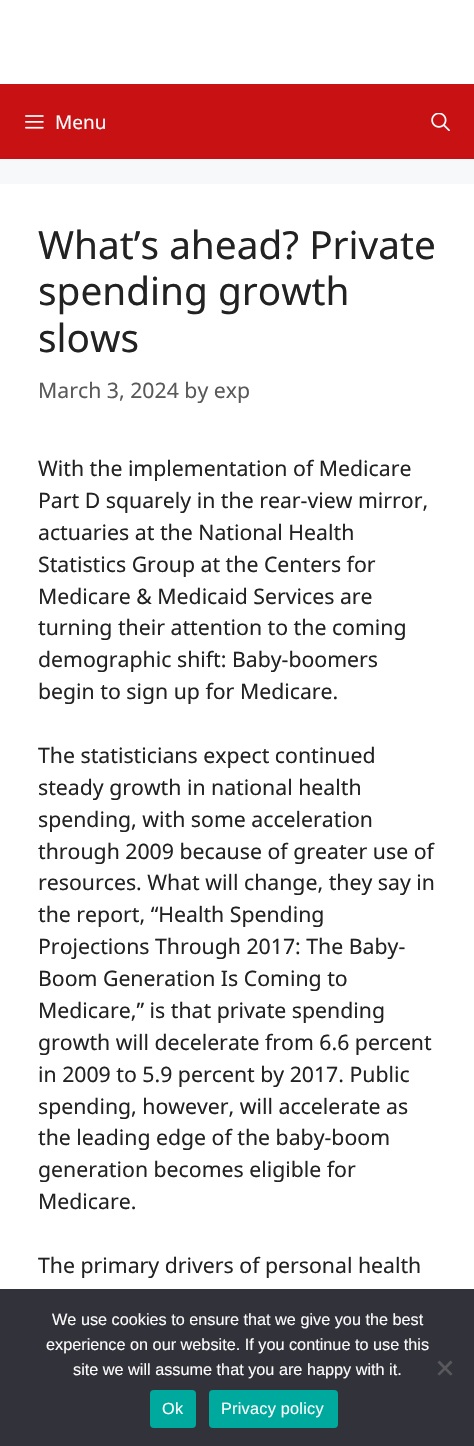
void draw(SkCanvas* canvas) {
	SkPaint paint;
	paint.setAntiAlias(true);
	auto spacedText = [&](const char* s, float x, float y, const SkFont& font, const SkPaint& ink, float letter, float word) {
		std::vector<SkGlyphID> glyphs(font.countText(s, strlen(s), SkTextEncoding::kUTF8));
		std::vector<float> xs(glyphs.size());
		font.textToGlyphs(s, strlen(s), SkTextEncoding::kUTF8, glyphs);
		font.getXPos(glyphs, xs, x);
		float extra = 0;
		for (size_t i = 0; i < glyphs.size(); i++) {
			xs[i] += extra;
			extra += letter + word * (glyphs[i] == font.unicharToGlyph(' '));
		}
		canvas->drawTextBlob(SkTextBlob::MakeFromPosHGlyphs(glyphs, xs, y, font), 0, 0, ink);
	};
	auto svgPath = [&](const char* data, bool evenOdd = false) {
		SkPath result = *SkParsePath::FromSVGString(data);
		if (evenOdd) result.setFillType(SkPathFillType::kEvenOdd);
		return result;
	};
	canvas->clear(0xfff7f8f9);
	paint.setColor(0xffffffff);
	canvas->drawRect(SkRect::MakeXYWH(0, 0, 474, 84), paint);
	paint.setColor(0xffc81112);
	canvas->drawRect(SkRect::MakeXYWH(0, 84, 474, 75), paint);
	canvas->drawImageRect(SkImages::DeferredFromEncodedData(SkData::MakeFromFileName("img1.png")), SkRect::MakeXYWH(25, 115, 19, 14), SkSamplingOptions());
	SkFont f1(fontMgr->matchFamilyStyle("Noto Sans", SkFontStyle::Normal()), 19);
	f1.setSubpixel(true);
	paint.setColor(0xfffcfcfc);
	canvas->drawString("Menu", 55, 129, f1, paint);
	canvas->drawImageRect(SkImages::DeferredFromEncodedData(SkData::MakeFromFileName("img2.png")), SkRect::MakeXYWH(431, 113, 19, 18), SkSamplingOptions());
	paint.setColor(0xffffffff);
	canvas->drawRect(SkRect::MakeXYWH(0, 184, 474, 1105), paint);
	SkFont f2(fontMgr->matchFamilyStyle("Noto Sans", SkFontStyle::Normal()), 38.75);
	f2.setSubpixel(true);
	paint.setColor(0xff222222);
	canvas->drawString("What’s ahead? Private", 38, 259, f2, paint);
	canvas->drawString("spending growth", 38, 305, f2, paint);
	canvas->drawString("slows", 38, 352, f2, paint);
	SkFont f3(fontMgr->matchFamilyStyle("Noto Sans", SkFontStyle::Normal()), 21.25);
	f3.setSubpixel(true);
	paint.setColor(0xff595959);
	canvas->drawString("March 3, 2024 by exp", 38, 398, f3, paint);
	paint.setColor(0xff222222);
	canvas->drawString("With the implementation of Medicare", 38, 476, f3, paint);
	canvas->drawString("Part D squarely in the rear-view mirror,", 38, 508, f3, paint);
	canvas->drawString("actuaries at the National Health", 38, 540, f3, paint);
	canvas->drawString("Statistics Group at the Centers for", 38, 572, f3, paint);
	canvas->drawString("Medicare & Medicaid Services are", 38, 604, f3, paint);
	canvas->drawString("turning their attention to the coming", 38, 635, f3, paint);
	canvas->drawString("demographic shift: Baby-boomers", 38, 667, f3, paint);
	canvas->drawString("begin to sign up for Medicare.", 38, 699, f3, paint);
	canvas->drawString("The statisticians expect continued", 38, 763, f3, paint);
	canvas->drawString("steady growth in national health", 38, 795, f3, paint);
	canvas->drawString("spending, with some acceleration", 38, 827, f3, paint);
	canvas->drawString("through 2009 because of greater use of", 38, 859, f3, paint);
	canvas->drawString("resources. What will change, they say in", 38, 890, f3, paint);
	canvas->drawString("the report, “Health Spending", 38, 922, f3, paint);
	canvas->drawString("Projections Through 2017: The Baby-", 38, 954, f3, paint);
	canvas->drawString("Boom Generation Is Coming to", 38, 986, f3, paint);
	canvas->drawString("Medicare,” is that private spending", 38, 1018, f3, paint);
	canvas->drawString("growth will decelerate from 6.6 percent", 38, 1050, f3, paint);
	canvas->drawString("in 2009 to 5.9 percent by 2017. Public", 38, 1082, f3, paint);
	canvas->drawString("spending, however, will accelerate as", 38, 1114, f3, paint);
	canvas->drawString("the leading edge of the baby-boom", 38, 1145, f3, paint);
	canvas->drawString("generation becomes eligible for", 38, 1177, f3, paint);
	canvas->drawString("Medicare.", 38, 1209, f3, paint);
	canvas->drawString("The primary drivers of personal health", 38, 1273, f3, paint);
	paint.setColor(0xff32323a);
	canvas->drawRect(SkRect::MakeXYWH(0, 1289, 474, 157), paint);
	SkFont f4(fontMgr->matchFamilyStyle("Liberation Sans", SkFontStyle::Normal()), 16.25);
	f4.setSubpixel(true);
	paint.setColor(0xfffcfcfc);
	canvas->drawString("We use cookies to ensure that we give you the best", 52, 1325, f4, paint);
	canvas->drawString("experience on our website. If you continue to use this", 46, 1350, f4, paint);
	canvas->drawString("site we will assume that you are happy with it.", 73, 1375, f4, paint);
	paint.setColor(0xff59595d);
	canvas->drawPath(svgPath("M450.5 1360.5L452.5 1362.5L439.5 1375.5L437.5 1374Z"), paint);
	canvas->drawPath(svgPath("M437.5 1362.5L439.5 1360.5L452.5 1374L450.5 1375.5Z"), paint);
	paint.setColor(0xff00a99d);
	canvas->drawRoundRect(SkRect::MakeXYWH(150, 1390, 46, 38), 4, 4, paint);
	paint.setColor(0xfffcfcfc);
	spacedText("Ok", 162, 1414, f4, paint, 0.25, 0);
	paint.setColor(0xff00a99d);
	canvas->drawRoundRect(SkRect::MakeXYWH(209, 1390, 129, 38), 4, 4, paint);
	paint.setColor(0xfffcfcfc);
	spacedText("Privacy policy", 221, 1414, f4, paint, 0.25, 0);
}
